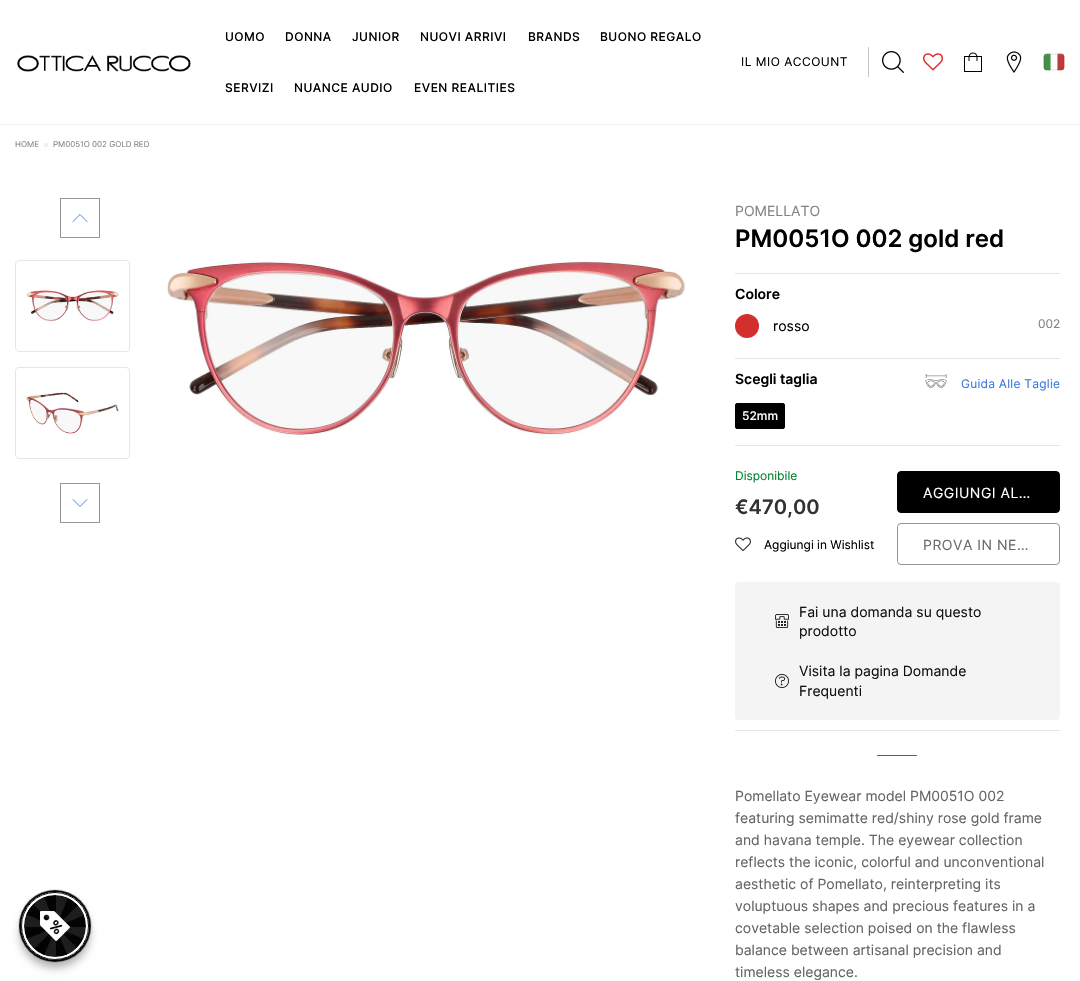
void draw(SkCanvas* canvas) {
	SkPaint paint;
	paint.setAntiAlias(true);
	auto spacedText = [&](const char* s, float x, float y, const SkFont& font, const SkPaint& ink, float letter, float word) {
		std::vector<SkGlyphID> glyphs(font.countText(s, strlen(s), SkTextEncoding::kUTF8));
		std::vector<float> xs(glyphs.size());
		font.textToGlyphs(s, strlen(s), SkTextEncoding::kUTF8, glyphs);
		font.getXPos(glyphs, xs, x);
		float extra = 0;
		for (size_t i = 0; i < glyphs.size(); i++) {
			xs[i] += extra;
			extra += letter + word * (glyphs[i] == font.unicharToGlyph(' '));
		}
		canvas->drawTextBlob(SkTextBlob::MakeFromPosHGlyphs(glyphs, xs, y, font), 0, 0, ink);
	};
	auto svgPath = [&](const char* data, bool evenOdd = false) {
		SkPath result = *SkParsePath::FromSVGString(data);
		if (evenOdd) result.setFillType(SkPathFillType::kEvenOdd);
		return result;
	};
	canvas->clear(0xffffffff);
	canvas->save();
	canvas->clipRect(SkRect::MakeXYWH(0, 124, 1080, 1));
	paint.setColor(0x1f000000);
	paint.setMaskFilter(SkMaskFilter::MakeBlur(kNormal_SkBlurStyle, 1.5));
	canvas->drawRect(SkRect::MakeXYWH(0, 0, 1080, 124), paint);
	paint.setMaskFilter(nullptr);
	canvas->restore();
	canvas->drawImageRect(SkImages::DeferredFromEncodedData(SkData::MakeFromFileName("img1.png")), SkRect::MakeXYWH(17, 55, 174, 17), SkSamplingOptions());
	SkFont f1(fontMgr->matchFamilyStyle("Inter", SkFontStyle(500, SkFontStyle::kNormal_Width, SkFontStyle::kUpright_Slant)), 12);
	f1.setSubpixel(true);
	paint.setColor(0xff000000);
	spacedText("UOMO", 225, 41, f1, paint, 0.5, 0);
	spacedText("DONNA", 285, 41, f1, paint, 0.5, 0);
	spacedText("JUNIOR", 352, 41, f1, paint, 0.5, 0);
	spacedText("NUOVI ARRIVI", 420, 41, f1, paint, 0.5, 0);
	spacedText("BRANDS", 528, 41, f1, paint, 0.5, 0);
	spacedText("BUONO REGALO", 600, 41, f1, paint, 0.5, 0);
	spacedText("SERVIZI", 225, 92, f1, paint, 0.5, 0);
	spacedText("NUANCE AUDIO", 294, 92, f1, paint, 0.5, 0);
	spacedText("EVEN REALITIES", 414, 92, f1, paint, 0.5, 0);
	paint.setColor(0xffc4c4c4);
	canvas->drawRect(SkRect::MakeXYWH(868, 47, 1, 30), paint);
	SkFont f2(fontMgr->matchFamilyStyle("Inter", SkFontStyle::Normal()), 12);
	f2.setSubpixel(true);
	paint.setColor(0xff000000);
	spacedText("IL MIO ACCOUNT", 741, 66, f2, paint, 0.5, 0);
	canvas->drawImageRect(SkImages::DeferredFromEncodedData(SkData::MakeFromFileName("img2.png")), SkRect::MakeXYWH(882, 51, 22, 22), SkSamplingOptions());
	canvas->drawImageRect(SkImages::DeferredFromEncodedData(SkData::MakeFromFileName("img3.png")), SkRect::MakeXYWH(923, 53, 20, 18), SkSamplingOptions());
	canvas->drawImageRect(SkImages::DeferredFromEncodedData(SkData::MakeFromFileName("img4.png")), SkRect::MakeXYWH(964, 52, 18, 20), SkSamplingOptions());
	canvas->drawImageRect(SkImages::DeferredFromEncodedData(SkData::MakeFromFileName("img5.png")), SkRect::MakeXYWH(1006, 51, 16, 22), SkSamplingOptions());
	canvas->drawImageRect(SkImages::DeferredFromEncodedData(SkData::MakeFromFileName("img6.png")), SkRect::MakeXYWH(1043, 53, 22, 18), SkSamplingOptions());
	SkFont f3(fontMgr->matchFamilyStyle("Inter", SkFontStyle::Normal()), 8);
	f3.setSubpixel(true);
	paint.setColor(0xff848484);
	canvas->drawString("HOME", 15, 147, f3, paint);
	paint.setStroke(true);
	paint.setStrokeWidth(1);
	paint.setColor(0xffe6e6e6);
	canvas->drawCircle(46, 145, 1.5, paint);
	paint.setStroke(false);
	paint.setColor(0xff848484);
	canvas->drawString("PM0051O 002 GOLD RED", 53, 147, f3, paint);
	paint.setStroke(true);
	paint.setColor(0xff939597);
	canvas->drawRect(SkRect::MakeXYWH(60.5, 198.5, 39, 39), paint);
	paint.setStrokeWidth(0.9);
	paint.setStrokeCap(SkPaint::kRound_Cap);
	paint.setStrokeJoin(SkPaint::kRound_Join);
	paint.setColor(0xff3a77e1);
	canvas->drawPath(svgPath("M87 221.5L80 214.5L73 221.5"), paint);
	canvas->drawImageRect(SkImages::DeferredFromEncodedData(SkData::MakeFromFileName("img7.png")), SkRect::MakeXYWH(167, 261, 519, 177), SkSamplingOptions());
	paint.setStrokeWidth(1);
	paint.setStrokeCap(SkPaint::kButt_Cap);
	paint.setStrokeJoin(SkPaint::kMiter_Join);
	paint.setColor(0xff939597);
	canvas->drawRect(SkRect::MakeXYWH(60.5, 483.5, 39, 39), paint);
	paint.setStrokeWidth(0.9);
	paint.setStrokeCap(SkPaint::kRound_Cap);
	paint.setStrokeJoin(SkPaint::kRound_Join);
	paint.setColor(0xff3a77e1);
	canvas->drawPath(svgPath("M73 499.5L80 506.5L87 499.5"), paint);
	paint.setStrokeWidth(1);
	paint.setStrokeCap(SkPaint::kButt_Cap);
	paint.setStrokeJoin(SkPaint::kMiter_Join);
	paint.setColor(0xffe6e6e6);
	canvas->drawRoundRect(SkRect::MakeXYWH(15.5, 260.5, 114, 91), 3.5, 3.5, paint);
	canvas->drawImageRect(SkImages::DeferredFromEncodedData(SkData::MakeFromFileName("img8.png")), SkRect::MakeXYWH(26, 290, 93, 33), SkSamplingOptions());
	canvas->drawRoundRect(SkRect::MakeXYWH(15.5, 367.5, 114, 91), 3.5, 3.5, paint);
	canvas->drawImageRect(SkImages::DeferredFromEncodedData(SkData::MakeFromFileName("img9.png")), SkRect::MakeXYWH(26, 392, 93, 43), SkSamplingOptions());
	SkFont f4(fontMgr->matchFamilyStyle("Inter", SkFontStyle::Normal()), 14);
	f4.setSubpixel(true);
	paint.setStroke(false);
	paint.setColor(0xff848484);
	canvas->drawString("POMELLATO", 735, 216, f4, paint);
	SkFont f5(fontMgr->matchFamilyStyle("Inter", SkFontStyle(600, SkFontStyle::kNormal_Width, SkFontStyle::kUpright_Slant)), 24);
	f5.setSubpixel(true);
	paint.setColor(0xff000000);
	canvas->drawString("PM0051O 002 gold red", 735, 247, f5, paint);
	paint.setColor(0xffe6e6e6);
	canvas->drawRect(SkRect::MakeXYWH(735, 273, 325, 1), paint);
	SkFont f6(fontMgr->matchFamilyStyle("Inter", SkFontStyle(600, SkFontStyle::kNormal_Width, SkFontStyle::kUpright_Slant)), 14);
	f6.setSubpixel(true);
	paint.setColor(0xff000000);
	canvas->drawString("Colore", 735, 299, f6, paint);
	paint.setColor(0xffd32f2f);
	canvas->drawCircle(747, 326, 12, paint);
	paint.setColor(0xff000000);
	canvas->drawString("rosso", 773, 331, f4, paint);
	paint.setColor(0xff848484);
	canvas->drawString("002", 1038, 328, f2, paint);
	paint.setColor(0xffe6e6e6);
	canvas->drawRect(SkRect::MakeXYWH(735, 730, 325, 1), paint);
	canvas->drawRect(SkRect::MakeXYWH(735, 358, 325, 1), paint);
	paint.setColor(0xff000000);
	canvas->drawString("Scegli taglia", 735, 384, f6, paint);
	canvas->drawImageRect(SkImages::DeferredFromEncodedData(SkData::MakeFromFileName("img10.png")), SkRect::MakeXYWH(925, 374, 22, 14), SkSamplingOptions());
	paint.setColor(0xff3a77e1);
	spacedText("Guida Alle Taglie", 961, 388, f2, paint, 0.25, 0);
	paint.setColor(0xff000000);
	canvas->drawRoundRect(SkRect::MakeXYWH(735.5, 403.5, 49, 25), 1.5, 1.5, paint);
	paint.setStroke(true);
	canvas->drawRoundRect(SkRect::MakeXYWH(735.5, 403.5, 49, 25), 1.5, 1.5, paint);
	paint.setStroke(false);
	paint.setColor(0xffffffff);
	canvas->drawString("52mm", 742, 420, f1, paint);
	paint.setColor(0xffe6e6e6);
	canvas->drawRect(SkRect::MakeXYWH(735, 445, 325, 1), paint);
	paint.setColor(0xff00822c);
	canvas->drawString("Disponibile", 735, 480, f2, paint);
	SkFont f7(fontMgr->matchFamilyStyle("Inter", SkFontStyle(600, SkFontStyle::kNormal_Width, SkFontStyle::kUpright_Slant)), 20);
	f7.setSubpixel(true);
	paint.setColor(0xff323232);
	canvas->drawString("€470,00", 735, 514, f7, paint);
	canvas->drawImageRect(SkImages::DeferredFromEncodedData(SkData::MakeFromFileName("img11.png")), SkRect::MakeXYWH(735, 537, 16, 15), SkSamplingOptions());
	paint.setColor(0xff000000);
	canvas->drawString("Aggiungi in Wishlist", 764, 549, f2, paint);
	canvas->drawRoundRect(SkRect::MakeXYWH(897.5, 471.5, 162, 41), 3.5, 3.5, paint);
	paint.setStroke(true);
	canvas->drawRoundRect(SkRect::MakeXYWH(897.5, 471.5, 162, 41), 3.5, 3.5, paint);
	paint.setStroke(false);
	paint.setColor(0xffffffff);
	spacedText("AGGIUNGI AL…", 923, 498, f4, paint, 0.5, 0);
	paint.setStroke(true);
	paint.setColor(0xff939597);
	canvas->drawRoundRect(SkRect::MakeXYWH(897.5, 523.5, 162, 41), 3.5, 3.5, paint);
	paint.setStroke(false);
	paint.setColor(0xff6c6b6c);
	spacedText("PROVA IN NE…", 923, 550, f4, paint, 0.5, 0);
	paint.setColor(0xfff4f4f4);
	canvas->drawRoundRect(SkRect::MakeXYWH(735, 582, 325, 138), 4, 4, paint);
	canvas->drawImageRect(SkImages::DeferredFromEncodedData(SkData::MakeFromFileName("img12.png")), SkRect::MakeXYWH(775, 614, 14, 14), SkSamplingOptions());
	paint.setColor(0xff111111);
	canvas->drawString("Fai una domanda su questo", 799, 617, f4, paint);
	canvas->drawString("prodotto", 799, 636, f4, paint);
	canvas->drawImageRect(SkImages::DeferredFromEncodedData(SkData::MakeFromFileName("img13.png")), SkRect::MakeXYWH(775, 674, 14, 14), SkSamplingOptions());
	canvas->drawString("Visita la pagina Domande", 799, 676, f4, paint);
	canvas->drawString("Frequenti", 799, 696, f4, paint);
	paint.setColor(0xffe02a29);
	canvas->drawRect(SkRect::MakeXYWH(877, 755, 40, 1), paint);
	paint.setColor(0xff646464);
	canvas->drawString("Pomellato Eyewear model PM0051O 002", 735, 801, f4, paint);
	canvas->drawString("featuring semimatte red/shiny rose gold frame", 735, 823, f4, paint);
	canvas->drawString("and havana temple. The eyewear collection", 735, 845, f4, paint);
	canvas->drawString("reflects the iconic, colorful and unconventional", 735, 867, f4, paint);
	canvas->drawString("aesthetic of Pomellato, reinterpreting its", 735, 889, f4, paint);
	canvas->drawString("voluptuous shapes and precious features in a", 735, 911, f4, paint);
	canvas->drawString("covetable selection poised on the flawless", 735, 933, f4, paint);
	canvas->drawString("balance between artisanal precision and", 735, 955, f4, paint);
	canvas->drawString("timeless elegance.", 735, 977, f4, paint);
	paint.setColor(0x4d000000);
	paint.setMaskFilter(SkMaskFilter::MakeBlur(kNormal_SkBlurStyle, 4));
	canvas->drawRoundRect(SkRect::MakeXYWH(20, 898, 70, 70), 35, 35, paint);
	paint.setMaskFilter(nullptr);
	paint.setColor(0xff030303);
	paint.setMaskFilter(SkMaskFilter::MakeBlur(kNormal_SkBlurStyle, 0.5));
	canvas->drawRoundRect(SkRect::MakeXYWH(19, 890, 72, 72), 36, 36, paint);
	paint.setMaskFilter(nullptr);
	canvas->drawCircle(55, 926, 35, paint);
	paint.setStroke(true);
	paint.setStrokeWidth(3);
	paint.setColor(0xffffffff);
	canvas->drawCircle(55, 926, 32.5, paint);
	canvas->drawCircle(55, 926, 32.5, paint);
	paint.setStrokeWidth(1);
	paint.setColor(0xff030303);
	canvas->drawCircle(55, 926, 33.5, paint);
	canvas->drawCircle(55, 926, 34.5, paint);
	paint.setStroke(false);
	paint.setColor(0x1affffff);
	canvas->drawPath(svgPath("M43 894C38 896 34 899 31 902L56 927L23 913C22 918 21 922 21 927H56L24 940C26 944 29 948 32 951L56 927L43 958C47 959 52 960 56 960V927L68 957C72 956 76 953 79 950L56 927L86 940C88 936 89 932 89 927H56L87 914C85 910 83 906 80 903L56 927L69 895C65 893 61 892 56 892V927Z"), paint);
	canvas->drawImageRect(SkImages::DeferredFromEncodedData(SkData::MakeFromFileName("img14.png")), SkRect::MakeXYWH(40, 911, 30, 30), SkSamplingOptions());
}
